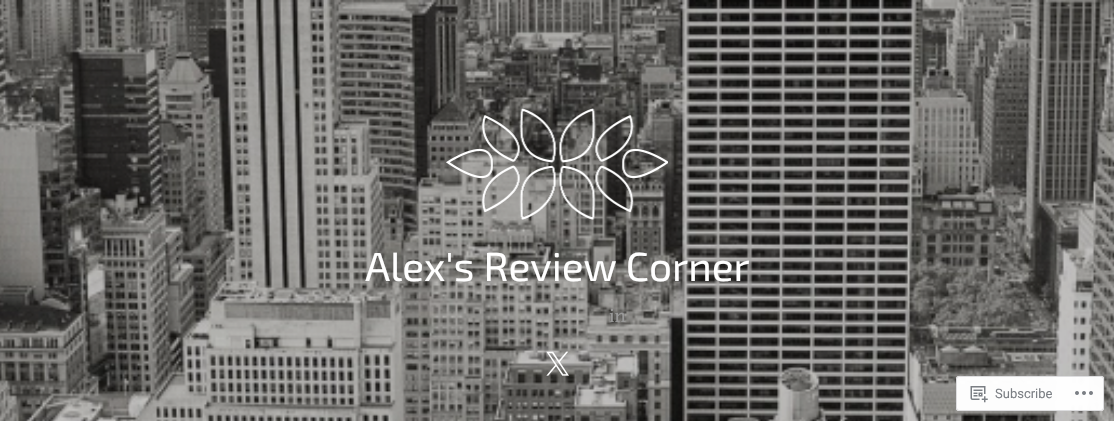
void draw(SkCanvas* canvas) {
	SkPaint paint;
	paint.setAntiAlias(true);
	canvas->clear(0xffffffff);
	canvas->drawImageRect(SkImages::DeferredFromEncodedData(SkData::MakeFromFileName("img1.png")), SkRect::MakeXYWH(0, 0, 1114, 421), SkSamplingOptions());
	canvas->drawImageRect(SkImages::DeferredFromEncodedData(SkData::MakeFromFileName("img2.png")), SkRect::MakeXYWH(446, 108, 222, 112), SkSamplingOptions());
	SkFont f1(fontMgr->matchFamilyStyle("Exo 2", SkFontStyle::Normal()), 40.5);
	f1.setSubpixel(true);
	paint.setColor(0xffffffff);
	canvas->drawString("Alex's Review Corner", 365, 281, f1, paint);
	SkFont f2(fontMgr->matchFamilyStyle("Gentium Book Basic", SkFontStyle::Normal()), 20);
	f2.setSubpixel(true);
	paint.setColor(0xff999999);
	canvas->drawString("in", 609, 322, f2, paint);
	canvas->drawImageRect(SkImages::DeferredFromEncodedData(SkData::MakeFromFileName("img3.png")), SkRect::MakeXYWH(546, 351, 23, 25), SkSamplingOptions());
	paint.setColor(0xfaffffff);
	canvas->drawRoundRect(SkRect::MakeXYWH(956, 376, 148, 35), 3, 3, paint);
	paint.setStroke(true);
	paint.setStrokeWidth(1);
	paint.setColor(0xfadcdcde);
	canvas->drawRoundRect(SkRect::MakeXYWH(956.5, 376.5, 147, 34), 2.5, 2.5, paint);
	canvas->drawImageRect(SkImages::DeferredFromEncodedData(SkData::MakeFromFileName("img4.png")), SkRect::MakeXYWH(970, 386, 18, 17), SkSamplingOptions());
	SkFont f3(fontMgr->matchFamilyStyle("Roboto", SkFontStyle::Normal()), 13);
	f3.setSubpixel(true);
	paint.setStroke(false);
	paint.setColor(0xff7b7f84);
	canvas->drawString("Subscribe", 995, 398, f3, paint);
	canvas->drawImageRect(SkImages::DeferredFromEncodedData(SkData::MakeFromFileName("img5.png")), SkRect::MakeXYWH(1075, 391, 18, 4), SkSamplingOptions());
}
